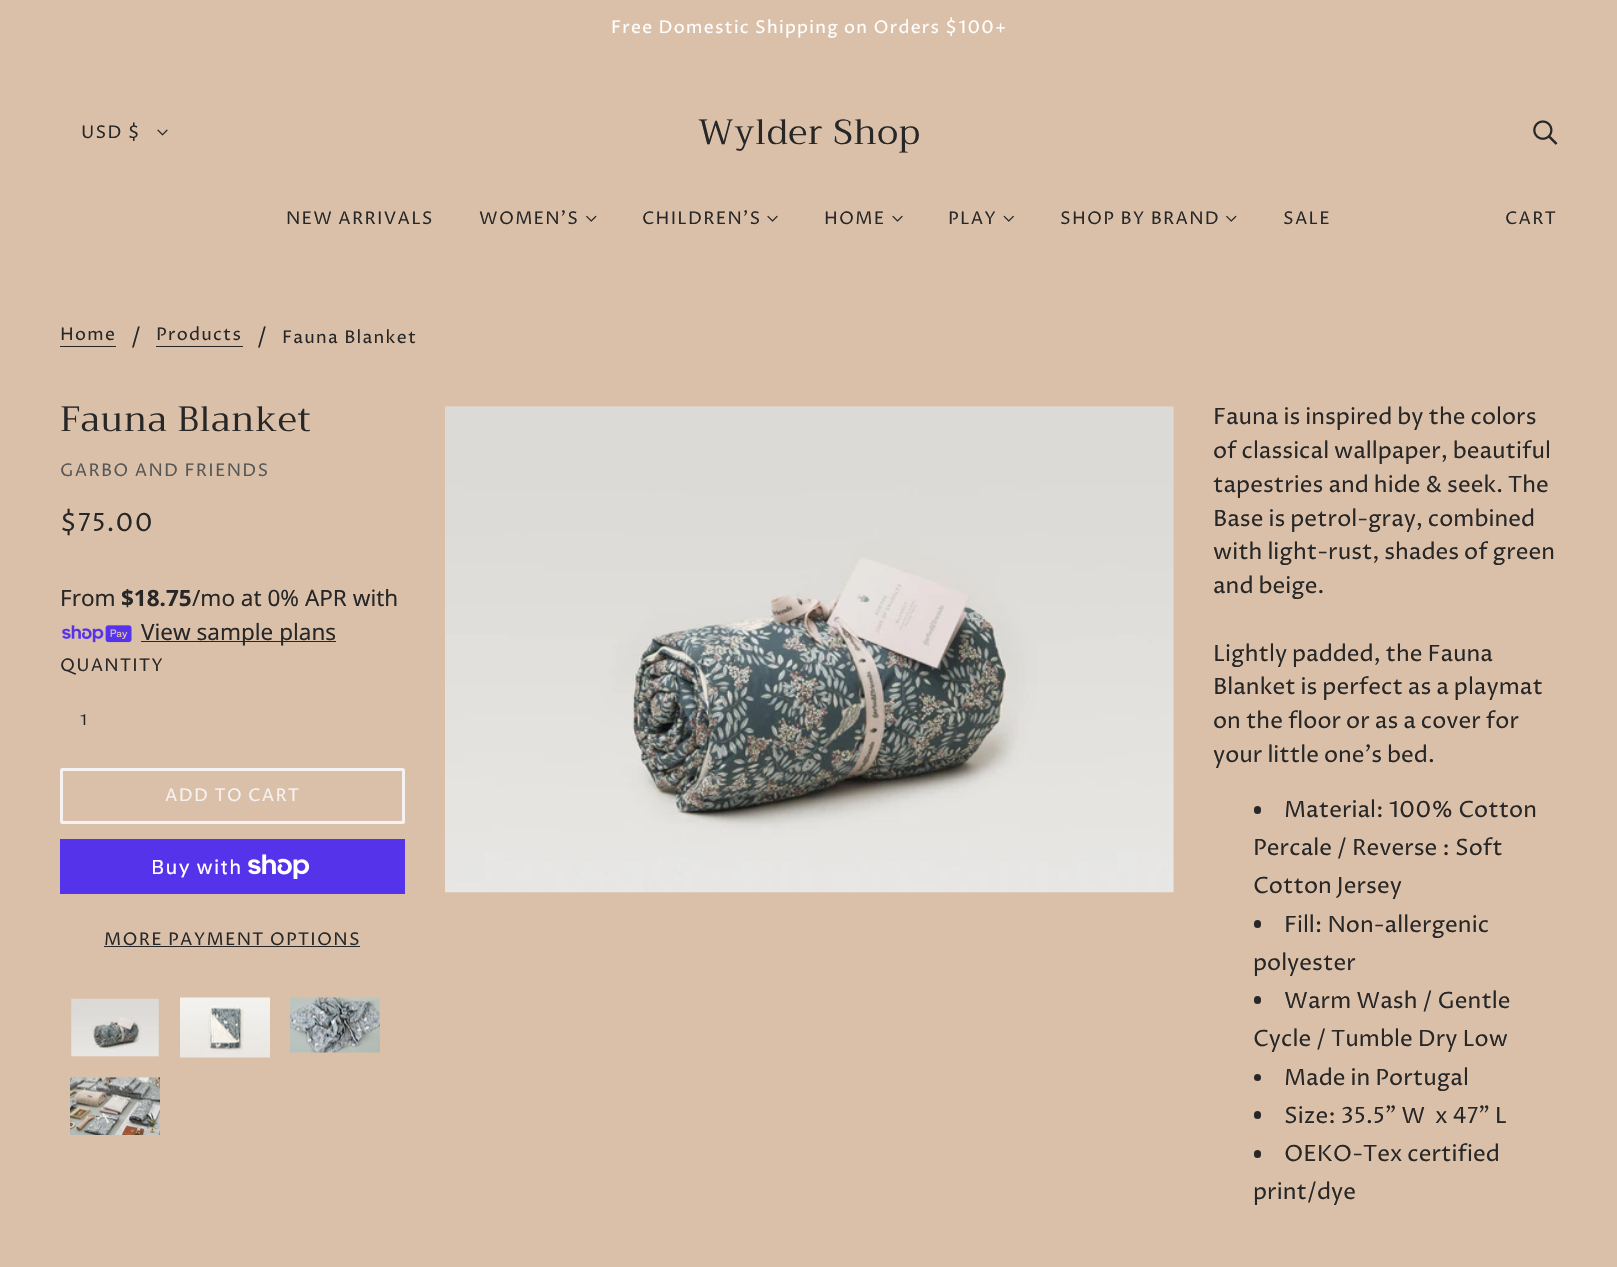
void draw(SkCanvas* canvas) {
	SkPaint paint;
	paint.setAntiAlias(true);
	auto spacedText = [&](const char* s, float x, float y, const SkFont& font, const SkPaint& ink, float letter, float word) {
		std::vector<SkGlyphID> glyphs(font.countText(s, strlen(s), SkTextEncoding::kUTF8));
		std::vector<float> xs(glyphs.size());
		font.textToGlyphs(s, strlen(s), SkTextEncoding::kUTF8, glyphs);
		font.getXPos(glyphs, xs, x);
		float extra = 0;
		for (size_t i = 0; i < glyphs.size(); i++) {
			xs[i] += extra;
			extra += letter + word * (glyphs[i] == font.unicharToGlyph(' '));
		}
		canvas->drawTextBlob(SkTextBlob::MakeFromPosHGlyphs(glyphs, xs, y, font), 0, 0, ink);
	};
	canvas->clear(0xffdbc0a9);
	SkFont f1(fontMgr->matchFamilyStyle("Proza Libre", SkFontStyle::Normal()), 17.5);
	f1.setSubpixel(true);
	paint.setColor(0xffffffff);
	spacedText("Free Domestic Shipping on Orders $100+", 611, 33, f1, paint, 1.25, 0);
	paint.setColor(0xff272727);
	spacedText("USD $", 81, 138, f1, paint, 1.25, 0);
	canvas->drawImageRect(SkImages::DeferredFromEncodedData(SkData::MakeFromFileName("img1.png")), SkRect::MakeXYWH(157, 129, 11, 7), SkSamplingOptions());
	SkFont f2(fontMgr->matchFamilyStyle("Trirong", SkFontStyle::Normal()), 35);
	f2.setSubpixel(true);
	spacedText("Wylder Shop", 698, 144, f2, paint, 0.9, 0);
	canvas->drawImageRect(SkImages::DeferredFromEncodedData(SkData::MakeFromFileName("img2.png")), SkRect::MakeXYWH(1533, 120, 25, 25), SkSamplingOptions());
	spacedText("NEW ARRIVALS", 286, 224, f1, paint, 1.25, 0);
	spacedText("WOMEN'S", 479, 224, f1, paint, 1.25, 0);
	canvas->drawImageRect(SkImages::DeferredFromEncodedData(SkData::MakeFromFileName("img3.png")), SkRect::MakeXYWH(586, 215, 11, 7), SkSamplingOptions());
	spacedText("CHILDREN'S", 642, 224, f1, paint, 1.25, 0);
	canvas->drawImageRect(SkImages::DeferredFromEncodedData(SkData::MakeFromFileName("img4.png")), SkRect::MakeXYWH(767, 215, 11, 7), SkSamplingOptions());
	spacedText("HOME", 824, 224, f1, paint, 1.25, 0);
	canvas->drawImageRect(SkImages::DeferredFromEncodedData(SkData::MakeFromFileName("img4.png")), SkRect::MakeXYWH(892, 215, 11, 7), SkSamplingOptions());
	spacedText("PLAY", 948, 224, f1, paint, 1.25, 0);
	canvas->drawImageRect(SkImages::DeferredFromEncodedData(SkData::MakeFromFileName("img5.png")), SkRect::MakeXYWH(1003, 215, 11, 7), SkSamplingOptions());
	spacedText("SHOP BY BRAND", 1060, 224, f1, paint, 1.25, 0);
	canvas->drawImageRect(SkImages::DeferredFromEncodedData(SkData::MakeFromFileName("img3.png")), SkRect::MakeXYWH(1226, 215, 11, 7), SkSamplingOptions());
	spacedText("SALE", 1283, 224, f1, paint, 1.25, 0);
	spacedText("CART", 1505, 224, f1, paint, 1.25, 0);
	spacedText("Home", 60, 340, f1, paint, 1.25, 0);
	canvas->drawRect(SkRect::MakeXYWH(60, 346, 56, 1), paint);
	SkFont f3(fontMgr->matchFamilyStyle("Proza Libre", SkFontStyle::Normal()), 22.5);
	f3.setSubpixel(true);
	canvas->drawString("/", 131, 344, f3, paint);
	spacedText("Products", 156, 340, f1, paint, 1.25, 0);
	canvas->drawRect(SkRect::MakeXYWH(156, 346, 87, 1), paint);
	canvas->drawString("/", 257, 344, f3, paint);
	spacedText("Fauna Blanket", 282, 343, f1, paint, 1.25, 0);
	spacedText("Fauna Blanket", 60, 431, f2, paint, 0.9, 0);
	paint.setColor(0xff575757);
	spacedText("GARBO AND FRIENDS", 60, 476, f1, paint, 1.25, 0);
	canvas->drawImageRect(SkImages::DeferredFromEncodedData(SkData::MakeFromFileName("img6.png")), SkRect::MakeXYWH(445, 406, 729, 487), SkSamplingOptions());
	paint.setColor(0xff272727);
	canvas->drawString("Fauna is inspired by the colors", 1213, 424, f3, paint);
	canvas->drawString("of classical wallpaper, beautiful", 1213, 458, f3, paint);
	canvas->drawString("tapestries and hide & seek. The", 1213, 492, f3, paint);
	canvas->drawString("Base is petrol-gray, combined", 1213, 526, f3, paint);
	canvas->drawString("with light-rust, shades of green", 1213, 559, f3, paint);
	canvas->drawString("and beige.", 1213, 593, f3, paint);
	canvas->drawString("Lightly padded, the Fauna", 1213, 661, f3, paint);
	canvas->drawString("Blanket is perfect as a playmat", 1213, 694, f3, paint);
	canvas->drawString("on the floor or as a cover for", 1213, 728, f3, paint);
	canvas->drawString("your little one's bed.", 1213, 762, f3, paint);
	canvas->drawRoundRect(SkRect::MakeXYWH(1254, 806, 7, 8), 3.5, 3.5, paint);
	canvas->drawString("Material: 100% Cotton", 1284, 817, f3, paint);
	canvas->drawString("Percale / Reverse : Soft", 1253, 855, f3, paint);
	canvas->drawString("Cotton Jersey", 1253, 893, f3, paint);
	canvas->drawRoundRect(SkRect::MakeXYWH(1254, 920, 7, 8), 3.5, 3.5, paint);
	canvas->drawString("Fill: Non-allergenic", 1284, 932, f3, paint);
	canvas->drawString("polyester", 1253, 970, f3, paint);
	canvas->drawRoundRect(SkRect::MakeXYWH(1254, 996, 7, 8), 3.5, 3.5, paint);
	canvas->drawString("Warm Wash / Gentle", 1284, 1008, f3, paint);
	canvas->drawString("Cycle / Tumble Dry Low", 1253, 1046, f3, paint);
	canvas->drawCircle(1257.5, 1077.5, 3.5, paint);
	canvas->drawString("Made in Portugal", 1284, 1085, f3, paint);
	canvas->drawRoundRect(SkRect::MakeXYWH(1254, 1111, 7, 8), 3.5, 3.5, paint);
	canvas->drawString("Size: 35.5\" W  x 47\" L", 1284, 1123, f3, paint);
	canvas->drawRoundRect(SkRect::MakeXYWH(1254, 1150, 7, 8), 3.5, 3.5, paint);
	canvas->drawString("OEKO-Tex certified", 1284, 1161, f3, paint);
	canvas->drawString("print/dye", 1253, 1199, f3, paint);
	SkFont f4(fontMgr->matchFamilyStyle("Proza Libre", SkFontStyle::Normal()), 25);
	f4.setSubpixel(true);
	spacedText("$75.00", 60, 531, f4, paint, 1.25, 0);
	SkFont f5(fontMgr->matchFamilyStyle("Noto Sans", SkFontStyle::Normal()), 22.5);
	f5.setSubpixel(true);
	canvas->drawString("From", 60, 606, f5, paint);
	SkFont f6(fontMgr->matchFamilyStyle("Noto Sans", SkFontStyle::Bold()), 22.5);
	f6.setSubpixel(true);
	canvas->drawString("$18.75", 121, 606, f6, paint);
	canvas->drawString("/mo at 0% APR with", 192, 606, f5, paint);
	canvas->drawImageRect(SkImages::DeferredFromEncodedData(SkData::MakeFromFileName("img7.png")), SkRect::MakeXYWH(62, 625, 70, 18), SkSamplingOptions());
	canvas->drawRect(SkRect::MakeXYWH(141, 641, 195, 1), paint);
	canvas->drawString("View sample plans", 141, 640, f5, paint);
	spacedText("QUANTITY", 60, 671, f1, paint, 1.25, 0);
	SkFont f7(fontMgr->matchFamilyStyle("Proza Libre", SkFontStyle::Normal()), 15);
	f7.setSubpixel(true);
	spacedText("1", 80, 725, f7, paint, 1, 0);
	paint.setStroke(true);
	paint.setStrokeWidth(3);
	paint.setColor(0xfff7f2f2);
	canvas->drawRoundRect(SkRect::MakeXYWH(61.5, 769.5, 342, 53), 1, 1, paint);
	paint.setStroke(false);
	spacedText("ADD TO CART", 165, 801, f1, paint, 1.25, 0);
	paint.setColor(0xff5433eb);
	canvas->drawRect(SkRect::MakeXYWH(60, 839, 345, 55), paint);
	SkFont f8(fontMgr->matchFamilyStyle("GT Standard", SkFontStyle::Normal()), 20);
	f8.setSubpixel(true);
	paint.setColor(0xffffffff);
	spacedText("Buy with", 151, 874, f8, paint, 1.25, 0);
	canvas->drawImageRect(SkImages::DeferredFromEncodedData(SkData::MakeFromFileName("img8.png")), SkRect::MakeXYWH(248, 854, 62, 25), SkSamplingOptions());
	paint.setColor(0xff272727);
	spacedText("MORE PAYMENT OPTIONS", 104, 945, f1, paint, 1.25, 0);
	canvas->drawRect(SkRect::MakeXYWH(104, 946, 256, 1), paint);
	canvas->drawImageRect(SkImages::DeferredFromEncodedData(SkData::MakeFromFileName("img9.png")), SkRect::MakeXYWH(71, 998, 88, 59), SkSamplingOptions());
	canvas->drawImageRect(SkImages::DeferredFromEncodedData(SkData::MakeFromFileName("img10.png")), SkRect::MakeXYWH(180, 997, 90, 61), SkSamplingOptions());
	canvas->drawImageRect(SkImages::DeferredFromEncodedData(SkData::MakeFromFileName("img11.png")), SkRect::MakeXYWH(290, 997, 90, 56), SkSamplingOptions());
	canvas->drawImageRect(SkImages::DeferredFromEncodedData(SkData::MakeFromFileName("img12.png")), SkRect::MakeXYWH(70, 1077, 90, 58), SkSamplingOptions());
}
